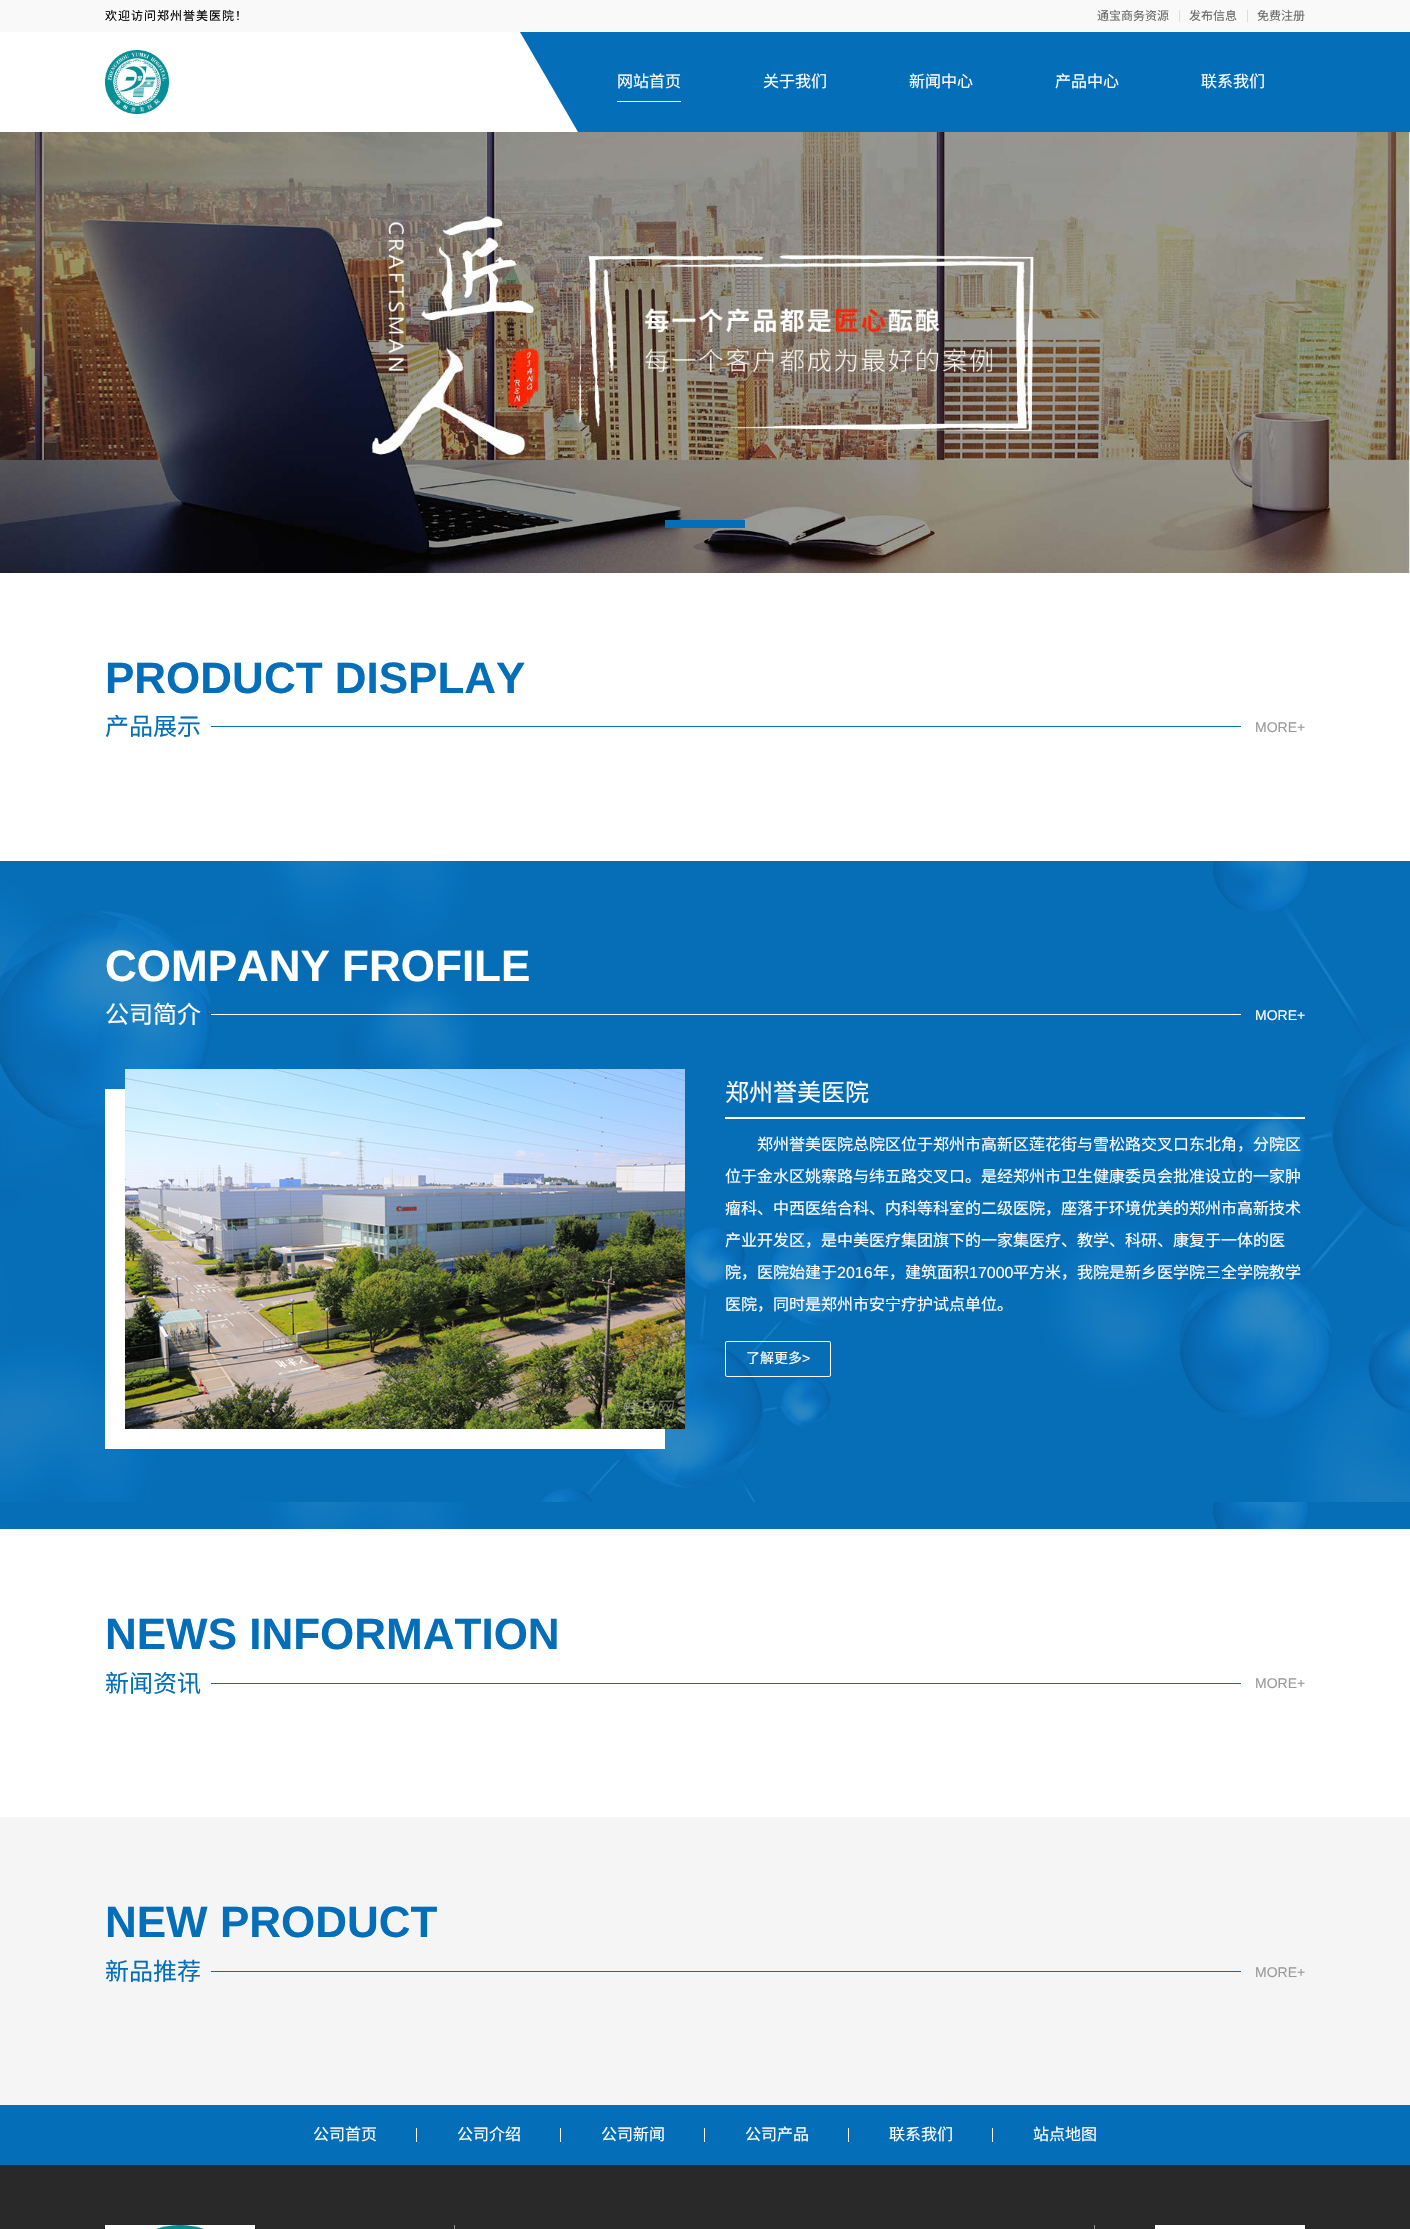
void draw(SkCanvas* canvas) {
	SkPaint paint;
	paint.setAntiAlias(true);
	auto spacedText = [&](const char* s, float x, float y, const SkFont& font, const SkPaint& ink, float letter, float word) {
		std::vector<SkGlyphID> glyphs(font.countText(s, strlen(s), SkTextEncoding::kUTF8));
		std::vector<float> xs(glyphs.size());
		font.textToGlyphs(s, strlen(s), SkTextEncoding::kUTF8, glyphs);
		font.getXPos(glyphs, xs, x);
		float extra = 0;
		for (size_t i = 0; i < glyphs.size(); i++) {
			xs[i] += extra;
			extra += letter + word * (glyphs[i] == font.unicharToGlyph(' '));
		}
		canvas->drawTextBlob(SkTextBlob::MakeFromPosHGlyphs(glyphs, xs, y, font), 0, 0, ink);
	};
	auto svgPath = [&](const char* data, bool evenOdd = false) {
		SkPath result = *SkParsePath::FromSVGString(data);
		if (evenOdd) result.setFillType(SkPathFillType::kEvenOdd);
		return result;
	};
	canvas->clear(0xffffffff);
	paint.setColor(0xfff9f9f9);
	canvas->drawRect(SkRect::MakeXYWH(0, 0, 1410, 32), paint);
	SkFont f1(fontMgr->matchFamilyStyle("Noto Sans CJK SC", SkFontStyle::Normal()), 12);
	f1.setSubpixel(true);
	paint.setColor(0xff000000);
	spacedText("欢迎访问郑州誉美医院！", 105, 20, f1, paint, 1, 0);
	paint.setColor(0xff666666);
	canvas->drawString("通宝商务资源", 1097, 20, f1, paint);
	paint.setColor(0xffdddddd);
	canvas->drawRect(SkRect::MakeXYWH(1179, 10, 1, 12), paint);
	paint.setColor(0xff666666);
	canvas->drawString("发布信息", 1189, 20, f1, paint);
	paint.setColor(0xffdddddd);
	canvas->drawRect(SkRect::MakeXYWH(1247, 10, 1, 12), paint);
	paint.setColor(0xff666666);
	canvas->drawString("免费注册", 1257, 20, f1, paint);
	paint.setColor(0xff046eb8);
	canvas->drawPath(svgPath("M520 32H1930L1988 132H578Z"), paint);
	canvas->drawImageRect(SkImages::DeferredFromEncodedData(SkData::MakeFromFileName("img1.png")), SkRect::MakeXYWH(105, 50, 64, 64), SkSamplingOptions());
	SkFont f2(fontMgr->matchFamilyStyle("Noto Sans CJK SC", SkFontStyle::Normal()), 16);
	f2.setSubpixel(true);
	paint.setColor(0xffffffff);
	canvas->drawString("网站首页", 617, 87, f2, paint);
	canvas->drawRect(SkRect::MakeXYWH(617, 101, 64, 1), paint);
	canvas->drawString("关于我们", 763, 87, f2, paint);
	canvas->drawString("新闻中心", 909, 87, f2, paint);
	canvas->drawString("产品中心", 1055, 87, f2, paint);
	canvas->drawString("联系我们", 1201, 87, f2, paint);
	canvas->drawImageRect(SkImages::DeferredFromEncodedData(SkData::MakeFromFileName("img2.png")), SkRect::MakeXYWH(0, 132, 1410, 441), SkSamplingOptions());
	paint.setColor(0xff046eb8);
	canvas->drawRect(SkRect::MakeXYWH(665, 520, 80, 8), paint);
	SkFont f3(fontMgr->matchFamilyStyle("Liberation Sans", SkFontStyle::Bold()), 44);
	f3.setSubpixel(true);
	canvas->drawString("PRODUCT DISPLAY", 105, 693, f3, paint);
	SkFont f4(fontMgr->matchFamilyStyle("Noto Sans CJK SC", SkFontStyle::Normal()), 24);
	f4.setSubpixel(true);
	canvas->drawString("产品展示", 105, 735, f4, paint);
	canvas->drawRect(SkRect::MakeXYWH(211, 726, 1030, 1), paint);
	SkFont f5(fontMgr->matchFamilyStyle("Liberation Sans", SkFontStyle::Normal()), 14);
	f5.setSubpixel(true);
	paint.setColor(0xff999999);
	canvas->drawString("MORE+", 1255, 732, f5, paint);
	canvas->drawImageRect(SkImages::DeferredFromEncodedData(SkData::MakeFromFileName("img3.png")), SkRect::MakeXYWH(0, 861, 1410, 668), SkSamplingOptions());
	paint.setColor(0xffffffff);
	canvas->drawString("COMPANY FROFILE", 105, 981, f3, paint);
	canvas->drawString("公司简介", 105, 1023, f4, paint);
	canvas->drawRect(SkRect::MakeXYWH(211, 1014, 1030, 1), paint);
	canvas->drawString("MORE+", 1255, 1020, f5, paint);
	canvas->drawImageRect(SkImages::DeferredFromEncodedData(SkData::MakeFromFileName("img4.png")), SkRect::MakeXYWH(105, 1069, 580, 380), SkSamplingOptions());
	canvas->drawRect(SkRect::MakeXYWH(725, 1117, 580, 2), paint);
	canvas->drawString("郑州誉美医院", 725, 1101, f4, paint);
	canvas->drawString("郑州誉美医院总院区位于郑州市高新区莲花街与雪松路交叉口东北角，分院区", 757, 1150, f2, paint);
	canvas->drawString("位于金水区姚寨路与纬五路交叉口。是经郑州市卫生健康委员会批准设立的一家肿", 725, 1182, f2, paint);
	canvas->drawString("瘤科、中西医结合科、内科等科室的二级医院，座落于环境优美的郑州市高新技术", 725, 1214, f2, paint);
	canvas->drawString("产业开发区，是中美医疗集团旗下的一家集医疗、教学、科研、康复于一体的医", 725, 1246, f2, paint);
	canvas->drawString("院，医院始建于", 725, 1278, f2, paint);
	SkFont f6(fontMgr->matchFamilyStyle("Liberation Sans", SkFontStyle::Normal()), 16);
	f6.setSubpixel(true);
	canvas->drawString("2016", 837, 1278, f6, paint);
	canvas->drawString("年，建筑面积", 873, 1278, f2, paint);
	canvas->drawString("17000", 969, 1278, f6, paint);
	canvas->drawString("平方米，我院是新乡医学院三全学院教学", 1013, 1278, f2, paint);
	canvas->drawString("医院，同时是郑州市安宁疗护试点单位。", 725, 1310, f2, paint);
	paint.setStroke(true);
	paint.setStrokeWidth(1);
	canvas->drawRoundRect(SkRect::MakeXYWH(725.5, 1341.5, 105, 35), 1.5, 1.5, paint);
	SkFont f7(fontMgr->matchFamilyStyle("Noto Sans CJK SC", SkFontStyle::Normal()), 14);
	f7.setSubpixel(true);
	paint.setStroke(false);
	canvas->drawString("了解更多", 746, 1363, f7, paint);
	canvas->drawString(">", 802, 1363, f5, paint);
	paint.setColor(0xff046eb8);
	canvas->drawString("NEWS INFORMATION", 105, 1649, f3, paint);
	canvas->drawString("新闻资讯", 105, 1692, f4, paint);
	canvas->drawRect(SkRect::MakeXYWH(211, 1683, 1030, 1), paint);
	paint.setColor(0xff999999);
	canvas->drawString("MORE+", 1255, 1688, f5, paint);
	paint.setColor(0xfff5f5f5);
	canvas->drawRect(SkRect::MakeXYWH(0, 1817, 1410, 288), paint);
	paint.setColor(0xff046eb8);
	canvas->drawString("NEW PRODUCT", 105, 1937, f3, paint);
	canvas->drawString("新品推荐", 105, 1980, f4, paint);
	canvas->drawRect(SkRect::MakeXYWH(211, 1971, 1030, 1), paint);
	paint.setColor(0xff999999);
	canvas->drawString("MORE+", 1255, 1977, f5, paint);
	paint.setColor(0xff046eb8);
	canvas->drawRect(SkRect::MakeXYWH(0, 2105, 1410, 60), paint);
	paint.setColor(0xffffffff);
	canvas->drawString("公司首页", 313, 2140, f2, paint);
	canvas->drawRect(SkRect::MakeXYWH(416, 2128, 1, 14), paint);
	canvas->drawString("公司介绍", 457, 2140, f2, paint);
	canvas->drawRect(SkRect::MakeXYWH(560, 2128, 1, 14), paint);
	canvas->drawString("公司新闻", 601, 2140, f2, paint);
	canvas->drawRect(SkRect::MakeXYWH(704, 2128, 1, 14), paint);
	canvas->drawString("公司产品", 745, 2140, f2, paint);
	canvas->drawRect(SkRect::MakeXYWH(848, 2128, 1, 14), paint);
	canvas->drawString("联系我们", 889, 2140, f2, paint);
	canvas->drawRect(SkRect::MakeXYWH(992, 2128, 1, 14), paint);
	canvas->drawString("站点地图", 1033, 2140, f2, paint);
	paint.setColor(0xff292929);
	canvas->drawRect(SkRect::MakeXYWH(0, 2165, 1410, 64), paint);
	paint.setColor(0xff909090);
	canvas->drawRect(SkRect::MakeXYWH(454, 2225, 1, 4), paint);
	canvas->drawImageRect(SkImages::DeferredFromEncodedData(SkData::MakeFromFileName("img5.png")), SkRect::MakeXYWH(105, 2225, 150, 4), SkSamplingOptions());
	canvas->drawRect(SkRect::MakeXYWH(1094, 2225, 1, 4), paint);
	paint.setColor(0xffffffff);
	canvas->drawRect(SkRect::MakeXYWH(1155, 2225, 150, 4), paint);
}
